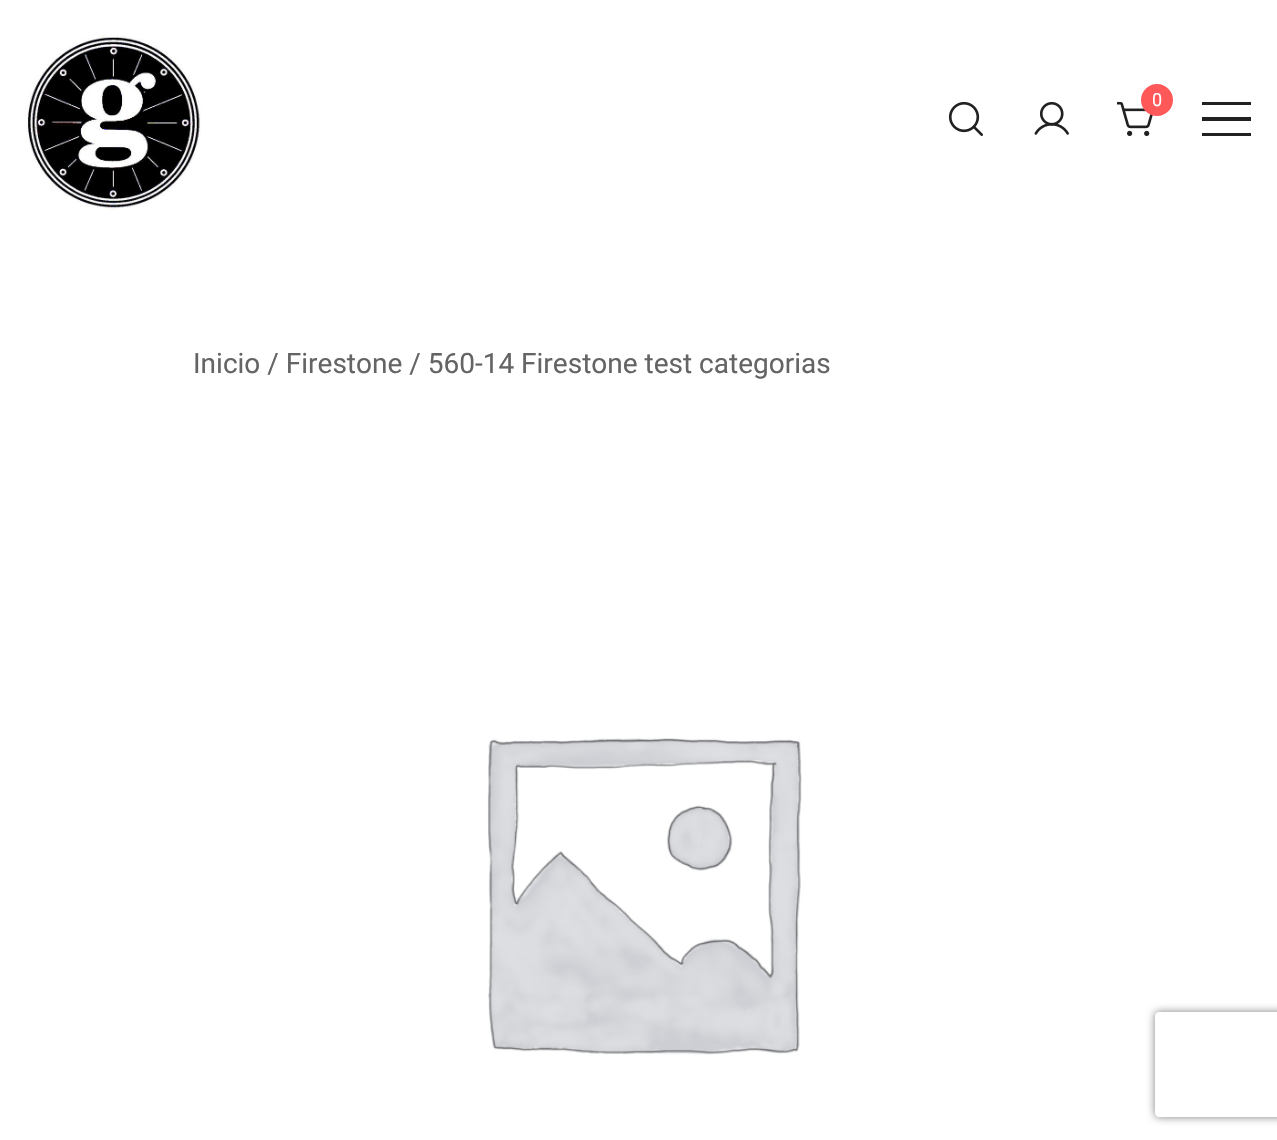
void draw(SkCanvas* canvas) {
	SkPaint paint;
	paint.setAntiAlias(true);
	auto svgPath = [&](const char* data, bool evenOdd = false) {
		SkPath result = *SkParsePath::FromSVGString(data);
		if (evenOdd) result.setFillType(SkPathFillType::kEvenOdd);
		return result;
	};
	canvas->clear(0xffffffff);
	canvas->drawImageRect(SkImages::DeferredFromEncodedData(SkData::MakeFromFileName("img1.png")), SkRect::MakeXYWH(26, 35, 175, 175), SkSamplingOptions());
	canvas->drawImageRect(SkImages::DeferredFromEncodedData(SkData::MakeFromFileName("img2.png")), SkRect::MakeXYWH(948, 101, 35, 35), SkSamplingOptions());
	canvas->drawImageRect(SkImages::DeferredFromEncodedData(SkData::MakeFromFileName("img3.png")), SkRect::MakeXYWH(1034, 101, 35, 34), SkSamplingOptions());
	canvas->drawImageRect(SkImages::DeferredFromEncodedData(SkData::MakeFromFileName("img4.png")), SkRect::MakeXYWH(1117, 101, 36, 35), SkSamplingOptions());
	paint.setColor(0xffff5858);
	canvas->drawCircle(1157, 100, 15, paint);
	paint.setStroke(true);
	paint.setStrokeWidth(2);
	canvas->drawCircle(1157, 100, 15, paint);
	SkFont f1(fontMgr->matchFamilyStyle("Roboto", SkFontStyle::Normal()), 18);
	f1.setSubpixel(true);
	paint.setStroke(false);
	paint.setColor(0xffffffff);
	canvas->drawString("0", 1152, 106, f1, paint);
	paint.setColor(0xff212121);
	canvas->drawRect(SkRect::MakeXYWH(1202, 102, 49, 3), paint);
	canvas->drawRect(SkRect::MakeXYWH(1202, 117, 49, 4), paint);
	canvas->drawRect(SkRect::MakeXYWH(1202, 133, 49, 3), paint);
	SkFont f2(fontMgr->matchFamilyStyle("Roboto", SkFontStyle::Normal()), 28);
	f2.setSubpixel(true);
	paint.setColor(0xff646464);
	canvas->drawString("Inicio / Firestone / 560-14 Firestone test categorias", 193, 373, f2, paint);
	canvas->drawImageRect(SkImages::DeferredFromEncodedData(SkData::MakeFromFileName("img5.png")), SkRect::MakeXYWH(487, 738, 315, 317), SkSamplingOptions());
	canvas->save();
	canvas->clipPath(svgPath("M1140 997H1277V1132H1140ZM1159 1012H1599C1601 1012 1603 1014 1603 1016V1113C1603 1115 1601 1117 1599 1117H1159C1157 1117 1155 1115 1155 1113V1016C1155 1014 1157 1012 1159 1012Z", true), true);
	paint.setColor(0xff808080);
	paint.setMaskFilter(SkMaskFilter::MakeBlur(kNormal_SkBlurStyle, 4.5));
	canvas->drawRoundRect(SkRect::MakeXYWH(1155, 1012, 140, 105), 4, 4, paint);
	paint.setMaskFilter(nullptr);
	canvas->restore();
}
